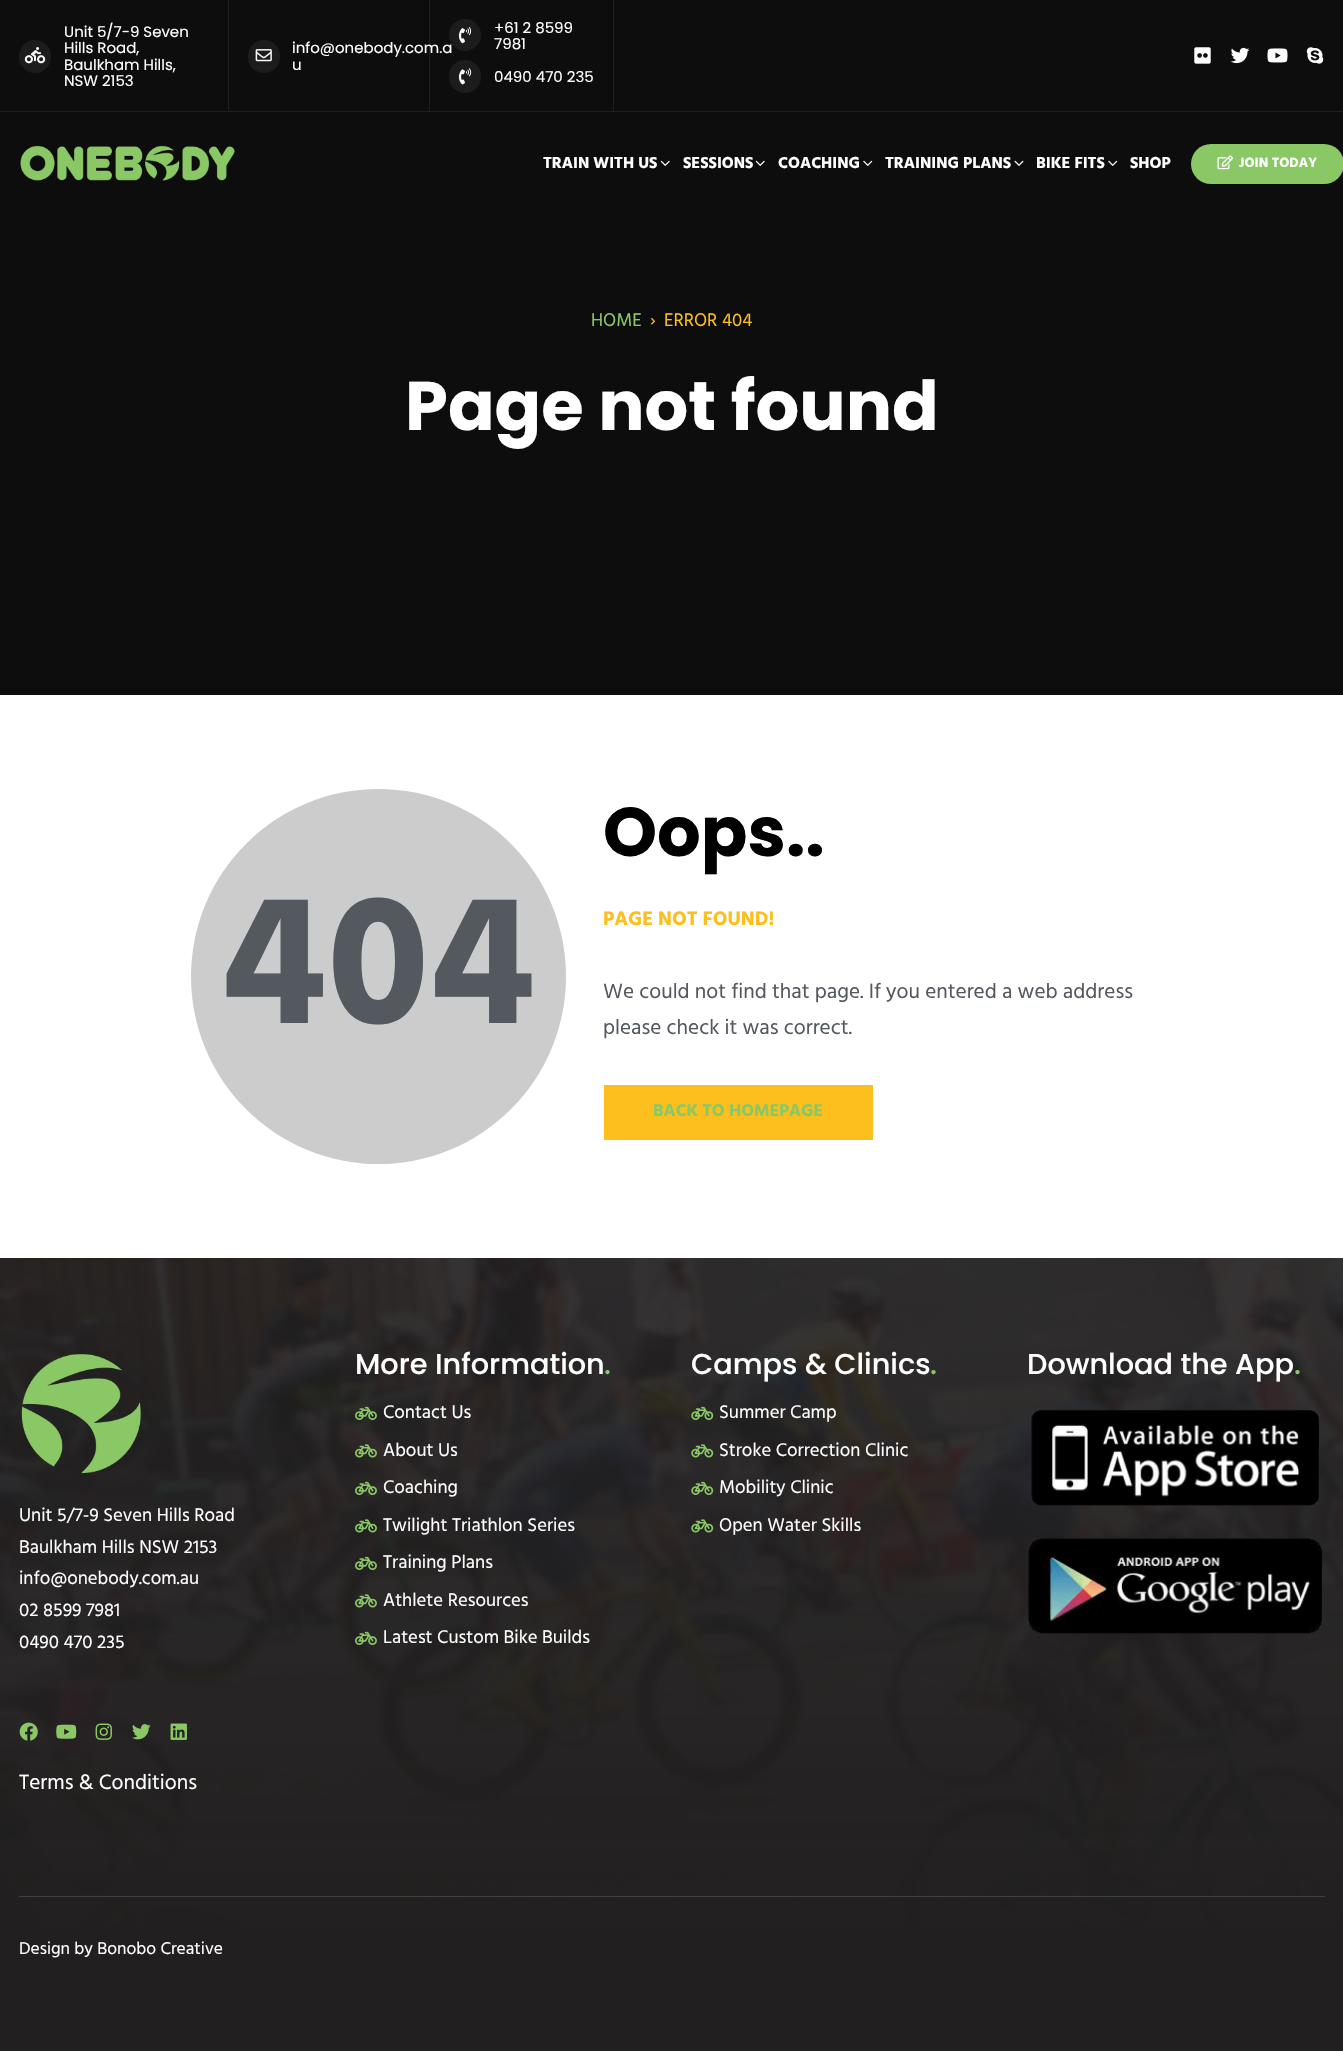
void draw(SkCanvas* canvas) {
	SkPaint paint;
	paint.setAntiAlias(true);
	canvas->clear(0xff0d0d0d);
	paint.setColor(0xff202020);
	canvas->drawRect(SkRect::MakeXYWH(0, 111, 1343, 1), paint);
	canvas->drawRect(SkRect::MakeXYWH(228, 0, 1, 111), paint);
	paint.setColor(0xff1c1c1c);
	canvas->drawRoundRect(SkRect::MakeXYWH(19, 40, 32, 33), 16, 16, paint);
	canvas->drawImageRect(SkImages::DeferredFromEncodedData(SkData::MakeFromFileName("img1.png")), SkRect::MakeXYWH(24, 47, 22, 17), SkSamplingOptions());
	SkFont f1(fontMgr->matchFamilyStyle("Poppins", SkFontStyle::Normal()), 15);
	f1.setSubpixel(true);
	paint.setColor(0xffffffff);
	canvas->drawString("Unit 5/7-9 Seven", 64, 37, f1, paint);
	canvas->drawString("Hills Road,", 64, 53, f1, paint);
	canvas->drawString("Baulkham Hills,", 64, 70, f1, paint);
	canvas->drawString("NSW 2153", 64, 86, f1, paint);
	paint.setColor(0xff202020);
	canvas->drawRect(SkRect::MakeXYWH(429, 0, 1, 111), paint);
	paint.setColor(0xff1c1c1c);
	canvas->drawRoundRect(SkRect::MakeXYWH(248, 40, 32, 33), 16, 16, paint);
	canvas->drawImageRect(SkImages::DeferredFromEncodedData(SkData::MakeFromFileName("img2.png")), SkRect::MakeXYWH(255, 49, 17, 13), SkSamplingOptions());
	paint.setColor(0xffffffff);
	canvas->drawString("info@onebody.com.a", 292, 53, f1, paint);
	canvas->drawString("u", 292, 70, f1, paint);
	paint.setColor(0xff202020);
	canvas->drawRect(SkRect::MakeXYWH(613, 0, 1, 111), paint);
	paint.setColor(0xff1c1c1c);
	canvas->drawCircle(465, 35, 16, paint);
	canvas->drawImageRect(SkImages::DeferredFromEncodedData(SkData::MakeFromFileName("img3.png")), SkRect::MakeXYWH(458, 27, 14, 17), SkSamplingOptions());
	paint.setColor(0xffffffff);
	canvas->drawString("+61 2 8599", 494, 33, f1, paint);
	canvas->drawString("7981", 494, 49, f1, paint);
	paint.setColor(0xff1c1c1c);
	canvas->drawRoundRect(SkRect::MakeXYWH(449, 60, 32, 33), 16, 16, paint);
	canvas->drawImageRect(SkImages::DeferredFromEncodedData(SkData::MakeFromFileName("img4.png")), SkRect::MakeXYWH(458, 68, 14, 17), SkSamplingOptions());
	paint.setColor(0xffffffff);
	canvas->drawString("0490 470 235", 494, 82, f1, paint);
	canvas->drawImageRect(SkImages::DeferredFromEncodedData(SkData::MakeFromFileName("img5.png")), SkRect::MakeXYWH(1194, 47, 17, 17), SkSamplingOptions());
	canvas->drawImageRect(SkImages::DeferredFromEncodedData(SkData::MakeFromFileName("img6.png")), SkRect::MakeXYWH(1230, 47, 20, 17), SkSamplingOptions());
	canvas->drawImageRect(SkImages::DeferredFromEncodedData(SkData::MakeFromFileName("img7.png")), SkRect::MakeXYWH(1267, 48, 21, 15), SkSamplingOptions());
	canvas->drawImageRect(SkImages::DeferredFromEncodedData(SkData::MakeFromFileName("img8.png")), SkRect::MakeXYWH(1306, 47, 18, 17), SkSamplingOptions());
	canvas->drawImageRect(SkImages::DeferredFromEncodedData(SkData::MakeFromFileName("img9.png")), SkRect::MakeXYWH(20, 145, 215, 36), SkSamplingOptions());
	SkFont f2(fontMgr->matchFamilyStyle("Hind", SkFontStyle::Bold()), 16.25);
	f2.setSubpixel(true);
	canvas->drawString("TRAIN WITH US", 543, 168, f2, paint);
	canvas->drawImageRect(SkImages::DeferredFromEncodedData(SkData::MakeFromFileName("img10.png")), SkRect::MakeXYWH(660, 160, 10, 6), SkSamplingOptions());
	canvas->drawString("SESSIONS", 683, 168, f2, paint);
	canvas->drawImageRect(SkImages::DeferredFromEncodedData(SkData::MakeFromFileName("img10.png")), SkRect::MakeXYWH(755, 160, 10, 6), SkSamplingOptions());
	canvas->drawString("COACHING", 778, 168, f2, paint);
	canvas->drawImageRect(SkImages::DeferredFromEncodedData(SkData::MakeFromFileName("img11.png")), SkRect::MakeXYWH(863, 160, 10, 6), SkSamplingOptions());
	canvas->drawString("TRAINING PLANS", 885, 168, f2, paint);
	canvas->drawImageRect(SkImages::DeferredFromEncodedData(SkData::MakeFromFileName("img12.png")), SkRect::MakeXYWH(1014, 160, 10, 6), SkSamplingOptions());
	canvas->drawString("BIKE FITS", 1036, 168, f2, paint);
	canvas->drawImageRect(SkImages::DeferredFromEncodedData(SkData::MakeFromFileName("img11.png")), SkRect::MakeXYWH(1108, 160, 10, 6), SkSamplingOptions());
	canvas->drawString("SHOP", 1130, 168, f2, paint);
	paint.setColor(0xff8ac865);
	canvas->drawRoundRect(SkRect::MakeXYWH(1191, 144, 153, 40), 20, 20, paint);
	canvas->drawImageRect(SkImages::DeferredFromEncodedData(SkData::MakeFromFileName("img13.png")), SkRect::MakeXYWH(1217, 155, 16, 15), SkSamplingOptions());
	SkFont f3(fontMgr->matchFamilyStyle("Hind", SkFontStyle::Bold()), 13.75);
	f3.setSubpixel(true);
	paint.setColor(0xffffffff);
	canvas->drawString("JOIN TODAY", 1239, 167, f3, paint);
	SkFont f4(fontMgr->matchFamilyStyle("Hind", SkFontStyle::Normal()), 18.75);
	f4.setSubpixel(true);
	paint.setColor(0xff8ac865);
	canvas->drawString("HOME", 591, 326, f4, paint);
	paint.setColor(0xfffcbf1e);
	canvas->drawString("›", 650, 326, f4, paint);
	canvas->drawString("ERROR 404", 664, 326, f4, paint);
	SkFont f5(fontMgr->matchFamilyStyle("Poppins", SkFontStyle::Bold()), 68.75);
	f5.setSubpixel(true);
	paint.setColor(0xffffffff);
	canvas->drawString("Page not found", 405, 430, f5, paint);
	canvas->drawRect(SkRect::MakeXYWH(0, 695, 1343, 563), paint);
	paint.setColor(0xffcccccc);
	canvas->drawCircle(378.5, 976.5, 187.5, paint);
	SkFont f6(fontMgr->matchFamilyStyle("Hind", SkFontStyle::Bold()), 188);
	f6.setSubpixel(true);
	paint.setColor(0xff54595f);
	canvas->drawString("404", 221, 1023, f6, paint);
	paint.setColor(0xff000000);
	canvas->drawString("Oops..", 603, 856, f5, paint);
	SkFont f7(fontMgr->matchFamilyStyle("Hind", SkFontStyle::Bold()), 20);
	f7.setSubpixel(true);
	paint.setColor(0xfffcbf1e);
	canvas->drawString("PAGE NOT FOUND!", 603, 925, f7, paint);
	SkFont f8(fontMgr->matchFamilyStyle("Hind", SkFontStyle::Normal()), 21.25);
	f8.setSubpixel(true);
	paint.setColor(0xff54595f);
	canvas->drawString("We could not find that page. If you entered a web address", 603, 998, f8, paint);
	canvas->drawString("please check it was correct.", 603, 1034, f8, paint);
	paint.setColor(0xfffcbf1e);
	canvas->drawRect(SkRect::MakeXYWH(604, 1085, 269, 55), paint);
	SkFont f9(fontMgr->matchFamilyStyle("Hind", SkFontStyle::Bold()), 17.5);
	f9.setSubpixel(true);
	paint.setColor(0xff8ac865);
	canvas->drawString("BACK TO HOMEPAGE", 653, 1116, f9, paint);
	canvas->drawImageRect(SkImages::DeferredFromEncodedData(SkData::MakeFromFileName("img14.png")), SkRect::MakeXYWH(0, 1258, 1343, 793), SkSamplingOptions());
	SkFont f10(fontMgr->matchFamilyStyle("Poppins", SkFontStyle(500, SkFontStyle::kNormal_Width, SkFontStyle::kUpright_Slant)), 28.75);
	f10.setSubpixel(true);
	paint.setColor(0xffffffff);
	canvas->drawString("More Information", 355, 1374, f10, paint);
	paint.setColor(0xff8ac865);
	canvas->drawString(".", 604, 1374, f10, paint);
	canvas->drawImageRect(SkImages::DeferredFromEncodedData(SkData::MakeFromFileName("img15.png")), SkRect::MakeXYWH(355, 1406, 22, 14), SkSamplingOptions());
	paint.setColor(0xffffffff);
	canvas->drawString("Contact Us", 383, 1418, f4, paint);
	canvas->drawImageRect(SkImages::DeferredFromEncodedData(SkData::MakeFromFileName("img16.png")), SkRect::MakeXYWH(355, 1444, 22, 14), SkSamplingOptions());
	canvas->drawString("About Us", 383, 1456, f4, paint);
	canvas->drawImageRect(SkImages::DeferredFromEncodedData(SkData::MakeFromFileName("img17.png")), SkRect::MakeXYWH(355, 1481, 22, 14), SkSamplingOptions());
	canvas->drawString("Coaching", 383, 1493, f4, paint);
	canvas->drawImageRect(SkImages::DeferredFromEncodedData(SkData::MakeFromFileName("img18.png")), SkRect::MakeXYWH(355, 1519, 22, 14), SkSamplingOptions());
	canvas->drawString("Twilight Triathlon Series", 383, 1531, f4, paint);
	canvas->drawImageRect(SkImages::DeferredFromEncodedData(SkData::MakeFromFileName("img19.png")), SkRect::MakeXYWH(355, 1556, 22, 14), SkSamplingOptions());
	canvas->drawString("Training Plans", 383, 1568, f4, paint);
	canvas->drawImageRect(SkImages::DeferredFromEncodedData(SkData::MakeFromFileName("img20.png")), SkRect::MakeXYWH(355, 1594, 22, 14), SkSamplingOptions());
	canvas->drawString("Athlete Resources", 383, 1606, f4, paint);
	canvas->drawImageRect(SkImages::DeferredFromEncodedData(SkData::MakeFromFileName("img21.png")), SkRect::MakeXYWH(355, 1631, 22, 14), SkSamplingOptions());
	canvas->drawString("Latest Custom Bike Builds", 383, 1643, f4, paint);
	canvas->drawString("Camps & Clinics", 691, 1374, f10, paint);
	paint.setColor(0xff8ac865);
	canvas->drawString(".", 930, 1374, f10, paint);
	canvas->drawImageRect(SkImages::DeferredFromEncodedData(SkData::MakeFromFileName("img22.png")), SkRect::MakeXYWH(691, 1406, 23, 14), SkSamplingOptions());
	paint.setColor(0xffffffff);
	canvas->drawString("Summer Camp", 719, 1418, f4, paint);
	canvas->drawImageRect(SkImages::DeferredFromEncodedData(SkData::MakeFromFileName("img23.png")), SkRect::MakeXYWH(691, 1444, 23, 14), SkSamplingOptions());
	canvas->drawString("Stroke Correction Clinic", 719, 1456, f4, paint);
	canvas->drawImageRect(SkImages::DeferredFromEncodedData(SkData::MakeFromFileName("img24.png")), SkRect::MakeXYWH(691, 1481, 23, 14), SkSamplingOptions());
	canvas->drawString("Mobility Clinic", 719, 1493, f4, paint);
	canvas->drawImageRect(SkImages::DeferredFromEncodedData(SkData::MakeFromFileName("img25.png")), SkRect::MakeXYWH(691, 1519, 23, 14), SkSamplingOptions());
	canvas->drawString("Open Water Skills", 719, 1531, f4, paint);
	canvas->drawString("Download the App", 1027, 1374, f10, paint);
	paint.setColor(0xff8ac865);
	canvas->drawString(".", 1294, 1374, f10, paint);
	canvas->drawImageRect(SkImages::DeferredFromEncodedData(SkData::MakeFromFileName("img26.png")), SkRect::MakeXYWH(1030, 1409, 290, 97), SkSamplingOptions());
	canvas->drawImageRect(SkImages::DeferredFromEncodedData(SkData::MakeFromFileName("img27.png")), SkRect::MakeXYWH(1028, 1538, 294, 96), SkSamplingOptions());
	canvas->drawImageRect(SkImages::DeferredFromEncodedData(SkData::MakeFromFileName("img28.png")), SkRect::MakeXYWH(21, 1354, 120, 120), SkSamplingOptions());
	paint.setColor(0xffffffff);
	canvas->drawString("Unit 5/7-9 Seven Hills Road", 19, 1521, f4, paint);
	canvas->drawString("Baulkham Hills NSW 2153", 19, 1553, f4, paint);
	canvas->drawString("info@onebody.com.au", 19, 1584, f4, paint);
	canvas->drawString("02 8599 7981", 19, 1616, f4, paint);
	canvas->drawString("0490 470 235", 19, 1648, f4, paint);
	canvas->drawImageRect(SkImages::DeferredFromEncodedData(SkData::MakeFromFileName("img29.png")), SkRect::MakeXYWH(19, 1722, 19, 19), SkSamplingOptions());
	canvas->drawImageRect(SkImages::DeferredFromEncodedData(SkData::MakeFromFileName("img30.png")), SkRect::MakeXYWH(56, 1724, 21, 15), SkSamplingOptions());
	canvas->drawImageRect(SkImages::DeferredFromEncodedData(SkData::MakeFromFileName("img31.png")), SkRect::MakeXYWH(95, 1723, 17, 17), SkSamplingOptions());
	canvas->drawImageRect(SkImages::DeferredFromEncodedData(SkData::MakeFromFileName("img32.png")), SkRect::MakeXYWH(132, 1724, 19, 16), SkSamplingOptions());
	canvas->drawImageRect(SkImages::DeferredFromEncodedData(SkData::MakeFromFileName("img33.png")), SkRect::MakeXYWH(170, 1723, 17, 17), SkSamplingOptions());
	canvas->drawString("Terms & Conditions", 19, 1789, f8, paint);
	paint.setColor(0xff414040);
	canvas->drawRect(SkRect::MakeXYWH(19, 1896, 1306, 1), paint);
	SkFont f11(fontMgr->matchFamilyStyle("Hind", SkFontStyle::Normal()), 17.5);
	f11.setSubpixel(true);
	paint.setColor(0xffffffff);
	canvas->drawString("Design by Bonobo Creative", 19, 1954, f11, paint);
}
